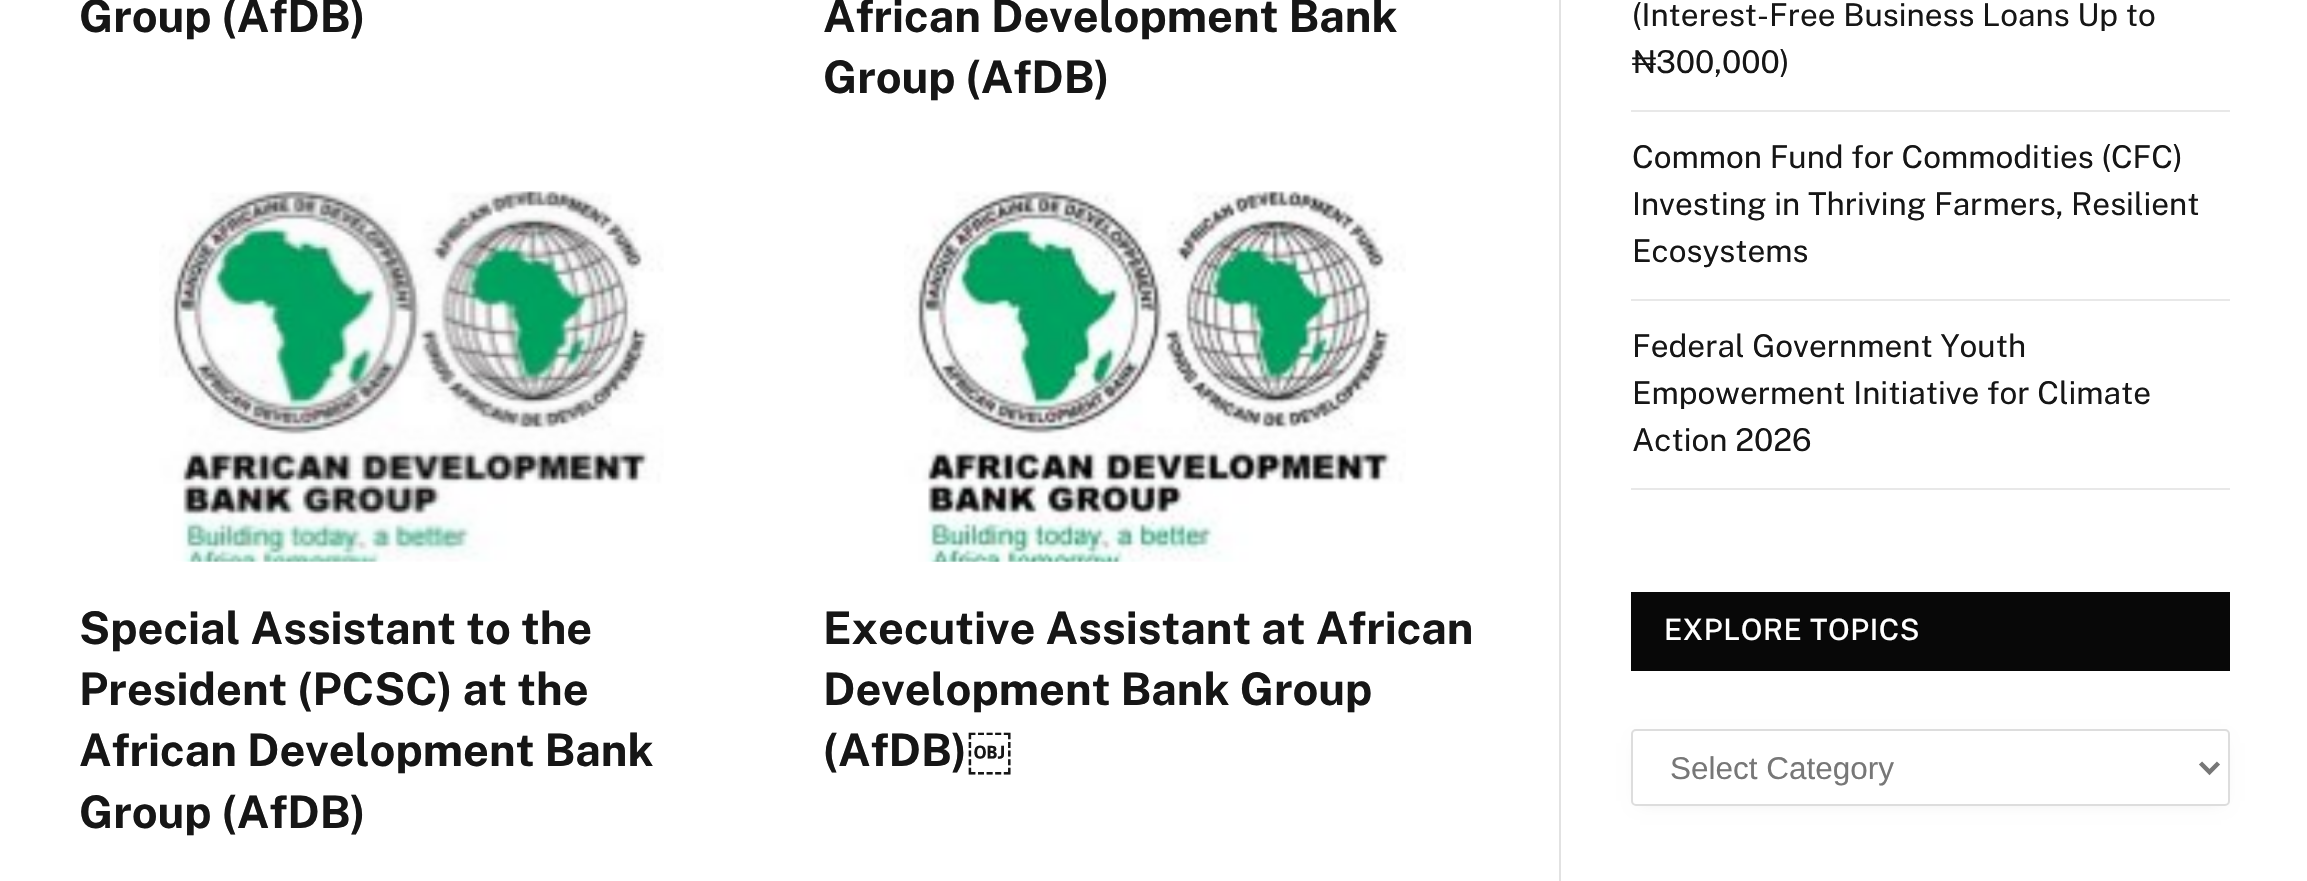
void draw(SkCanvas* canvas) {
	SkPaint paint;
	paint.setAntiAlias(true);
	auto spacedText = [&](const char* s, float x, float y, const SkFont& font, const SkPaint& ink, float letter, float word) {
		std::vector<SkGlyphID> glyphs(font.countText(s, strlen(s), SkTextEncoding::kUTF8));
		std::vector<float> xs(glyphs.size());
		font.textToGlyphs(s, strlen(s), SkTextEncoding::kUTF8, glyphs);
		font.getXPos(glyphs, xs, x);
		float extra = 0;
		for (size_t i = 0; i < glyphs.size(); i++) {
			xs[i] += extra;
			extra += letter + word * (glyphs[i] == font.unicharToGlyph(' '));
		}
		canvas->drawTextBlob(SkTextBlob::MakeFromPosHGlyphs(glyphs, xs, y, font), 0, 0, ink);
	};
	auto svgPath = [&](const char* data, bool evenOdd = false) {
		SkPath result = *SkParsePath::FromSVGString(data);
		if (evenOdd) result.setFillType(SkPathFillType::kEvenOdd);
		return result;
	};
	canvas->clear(0xffffffff);
	SkFont f1(fontMgr->matchFamilyStyle("Public Sans", SkFontStyle::Bold()), 45);
	f1.setSubpixel(true);
	paint.setColor(0xff161616);
	canvas->drawString("Group (AfDB)", 79, 32, f1, paint);
	canvas->drawString("African Development Bank", 823, 32, f1, paint);
	canvas->drawString("Group (AfDB)", 823, 93, f1, paint);
	canvas->drawImageRect(SkImages::DeferredFromEncodedData(SkData::MakeFromFileName("img1.png")), SkRect::MakeXYWH(159, 191, 505, 371), SkSamplingOptions());
	canvas->drawString("Special Assistant to the", 79, 644, f1, paint);
	canvas->drawString("President (PCSC) at the", 79, 705, f1, paint);
	canvas->drawString("African Development Bank", 79, 766, f1, paint);
	canvas->drawString("Group (AfDB)", 79, 828, f1, paint);
	canvas->drawImageRect(SkImages::DeferredFromEncodedData(SkData::MakeFromFileName("img2.png")), SkRect::MakeXYWH(904, 191, 502, 371), SkSamplingOptions());
	canvas->drawString("Executive Assistant at African", 823, 644, f1, paint);
	canvas->drawString("Development Bank Group", 823, 705, f1, paint);
	canvas->drawString("(AfDB)", 823, 766, f1, paint);
	SkFont f2(fontMgr->matchFamilyStyle("Noto Sans", SkFontStyle::Bold()), 45);
	f2.setSubpixel(true);
	canvas->drawString("￼", 967, 766, f2, paint);
	paint.setColor(0xffe2e2e2);
	canvas->drawRect(SkRect::MakeXYWH(1559, 0, 2, 881), paint);
	paint.setColor(0xffe8e8e8);
	canvas->drawRect(SkRect::MakeXYWH(1631, 110, 599, 2), paint);
	SkFont f3(fontMgr->matchFamilyStyle("Public Sans", SkFontStyle::Normal()), 31.5);
	f3.setSubpixel(true);
	paint.setColor(0xff161616);
	canvas->drawString("(Interest-Free Business Loans Up to", 1632, 26, f3, paint);
	canvas->drawString("₦300,000)", 1632, 73, f3, paint);
	paint.setColor(0xffe8e8e8);
	canvas->drawRect(SkRect::MakeXYWH(1631, 299, 599, 2), paint);
	paint.setColor(0xff161616);
	canvas->drawString("Common Fund for Commodities (CFC)", 1632, 168, f3, paint);
	canvas->drawString("Investing in Thriving Farmers, Resilient", 1632, 215, f3, paint);
	canvas->drawString("Ecosystems", 1632, 262, f3, paint);
	paint.setColor(0xffe8e8e8);
	canvas->drawRect(SkRect::MakeXYWH(1631, 488, 599, 2), paint);
	paint.setColor(0xff161616);
	canvas->drawString("Federal Government Youth", 1632, 357, f3, paint);
	canvas->drawString("Empowerment Initiative for Climate", 1632, 404, f3, paint);
	canvas->drawString("Action 2026", 1632, 451, f3, paint);
	paint.setColor(0xff080808);
	canvas->drawRect(SkRect::MakeXYWH(1631, 592, 599, 79), paint);
	SkFont f4(fontMgr->matchFamilyStyle("Public Sans", SkFontStyle(500, SkFontStyle::kNormal_Width, SkFontStyle::kUpright_Slant)), 29.25);
	f4.setSubpixel(true);
	paint.setColor(0xffffffff);
	spacedText("EXPLORE TOPICS", 1664, 640, f4, paint, 0.6, 0);
	paint.setColor(0x1a000000);
	paint.setMaskFilter(SkMaskFilter::MakeBlur(kNormal_SkBlurStyle, 8));
	canvas->drawRect(SkRect::MakeXYWH(1640, 743, 581, 58), paint);
	paint.setMaskFilter(nullptr);
	paint.setColor(0xffffffff);
	canvas->drawRoundRect(SkRect::MakeXYWH(1632, 730, 597, 75), 4, 4, paint);
	paint.setStroke(true);
	paint.setStrokeWidth(2);
	paint.setColor(0xffdddddd);
	canvas->drawRoundRect(SkRect::MakeXYWH(1632, 730, 597, 75), 4, 4, paint);
	paint.setStrokeWidth(4.5);
	paint.setColor(0xff777777);
	canvas->drawPath(svgPath("M2200.5 763L2209.5 772L2218.5 763"), paint);
	SkFont f5(fontMgr->matchFamilyStyle("Liberation Sans", SkFontStyle::Normal()), 31.5);
	f5.setSubpixel(true);
	paint.setStroke(false);
	canvas->drawString("Select Category", 1670, 779, f5, paint);
}
